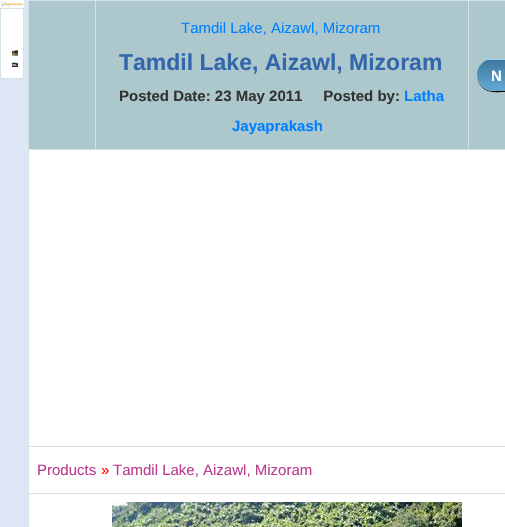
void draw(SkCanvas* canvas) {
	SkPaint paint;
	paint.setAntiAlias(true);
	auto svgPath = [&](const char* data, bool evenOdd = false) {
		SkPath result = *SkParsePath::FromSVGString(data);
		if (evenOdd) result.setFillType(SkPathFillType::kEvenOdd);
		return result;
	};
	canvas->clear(0xffdce6f4);
	canvas->drawImageRect(SkImages::DeferredFromEncodedData(SkData::MakeFromFileName("img1.png")), SkRect::MakeXYWH(0, 0, 24, 8), SkSamplingOptions());
	paint.setColor(0xffffffff);
	canvas->drawRect(SkRect::MakeXYWH(1, 9, 22, 69), paint);
	paint.setColor(0xffd4e3e5);
	canvas->drawRect(SkRect::MakeXYWH(0, 8, 24, 1), paint);
	canvas->drawRect(SkRect::MakeXYWH(23, 8, 1, 71), paint);
	canvas->drawRect(SkRect::MakeXYWH(0, 78, 24, 1), paint);
	canvas->drawRect(SkRect::MakeXYWH(0, 8, 1, 71), paint);
	canvas->drawImageRect(SkImages::DeferredFromEncodedData(SkData::MakeFromFileName("img2.png")), SkRect::MakeXYWH(12, 50, 6, 6), SkSamplingOptions());
	canvas->drawImageRect(SkImages::DeferredFromEncodedData(SkData::MakeFromFileName("img3.png")), SkRect::MakeXYWH(12, 62, 6, 5), SkSamplingOptions());
	paint.setColor(0xffacc8cc);
	canvas->drawRect(SkRect::MakeXYWH(29, 1, 66, 148), paint);
	paint.setColor(0xffd4e3e5);
	canvas->drawRect(SkRect::MakeXYWH(468, 0, 37, 1), paint);
	canvas->drawRect(SkRect::MakeXYWH(28, 149, 477, 1), paint);
	canvas->drawRect(SkRect::MakeXYWH(468, 0, 1, 150), paint);
	canvas->drawRect(SkRect::MakeXYWH(95, 0, 374, 1), paint);
	canvas->drawRect(SkRect::MakeXYWH(95, 0, 1, 150), paint);
	canvas->drawRect(SkRect::MakeXYWH(28, 0, 68, 1), paint);
	canvas->drawRect(SkRect::MakeXYWH(28, 446, 477, 1), paint);
	canvas->drawRect(SkRect::MakeXYWH(28, 493, 477, 1), paint);
	canvas->drawRect(SkRect::MakeXYWH(28, 493, 1, 34), paint);
	canvas->drawRect(SkRect::MakeXYWH(28, 446, 1, 48), paint);
	canvas->drawRect(SkRect::MakeXYWH(28, 149, 1, 298), paint);
	canvas->drawRect(SkRect::MakeXYWH(28, 0, 1, 150), paint);
	paint.setColor(0xffacc8cc);
	canvas->drawRect(SkRect::MakeXYWH(96, 1, 372, 148), paint);
	SkFont f1(fontMgr->matchFamilyStyle("Liberation Sans", SkFontStyle::Normal()), 15);
	f1.setSubpixel(true);
	paint.setColor(0xff0080ff);
	canvas->drawString("Tamdil Lake, Aizawl, Mizoram", 181, 33, f1, paint);
	SkFont f2(fontMgr->matchFamilyStyle("Liberation Sans", SkFontStyle::Bold()), 23);
	f2.setSubpixel(true);
	paint.setColor(0xff3366aa);
	canvas->drawString("Tamdil Lake, Aizawl, Mizoram", 119, 70, f2, paint);
	SkFont f3(fontMgr->matchFamilyStyle("Liberation Sans", SkFontStyle::Bold()), 15);
	f3.setSubpixel(true);
	paint.setColor(0xff333333);
	canvas->drawString("Posted Date: 23 May 2011     Posted by:", 119, 101, f3, paint);
	paint.setColor(0xff0080ff);
	canvas->drawString("Latha", 404, 101, f3, paint);
	canvas->drawString("Jayaprakash", 232, 131, f3, paint);
	paint.setColor(0xffacc8cc);
	canvas->drawRect(SkRect::MakeXYWH(469, 1, 36, 148), paint);
	paint.setColor(0xff000000);
	canvas->drawPath(svgPath("M477 75C477 79 478 82 480 85C486 94 498 92 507 92C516 92 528 94 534 85C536 82 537 79 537 75C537 84 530 91 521 91H493C484 91 477 84 477 75Z"), paint);
	canvas->save();
	canvas->clipPath(svgPath("M493 59H521C530 59 537 66 537 75C537 84 530 91 521 91H493C484 91 477 84 477 75C477 66 484 59 493 59Z"), true);
	{
		const SkColor colors[] = {0xff3e779d, 0xff65a9d7};
		const float stops[] = {0, 1};
		const SkPoint ends[] = {{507, 60}, {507, 91}};
		paint.setShader(SkGradientShader::MakeLinear(ends, colors, stops, 2, SkTileMode::kClamp));
		paint.setAlpha(255);
	}
	canvas->drawPath(svgPath("M477 60H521V75C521 84 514 91 505 91H493C484 91 477 84 477 75Z"), paint);
	canvas->restore();
	paint.setShader(nullptr);
	paint.setColor(0xffffffff);
	canvas->drawString("N", 491, 81, f3, paint);
	paint.setColor(0xff96d1f8);
	canvas->drawRect(SkRect::MakeXYWH(485, 59, 20, 1), paint);
	paint.setColor(0xffffffff);
	canvas->drawRect(SkRect::MakeXYWH(29, 150, 476, 296), paint);
	canvas->drawRect(SkRect::MakeXYWH(29, 447, 476, 46), paint);
	paint.setColor(0xffb93b8f);
	canvas->drawString("Products", 37, 475, f1, paint);
	paint.setColor(0xffff0000);
	canvas->drawString("»", 101, 475, f1, paint);
	paint.setColor(0xffb93b8f);
	canvas->drawString("Tamdil Lake, Aizawl, Mizoram", 113, 475, f1, paint);
	paint.setColor(0xffffffff);
	canvas->drawRect(SkRect::MakeXYWH(29, 494, 476, 33), paint);
	canvas->drawImageRect(SkImages::DeferredFromEncodedData(SkData::MakeFromFileName("img4.png")), SkRect::MakeXYWH(112, 502, 350, 25), SkSamplingOptions());
}
